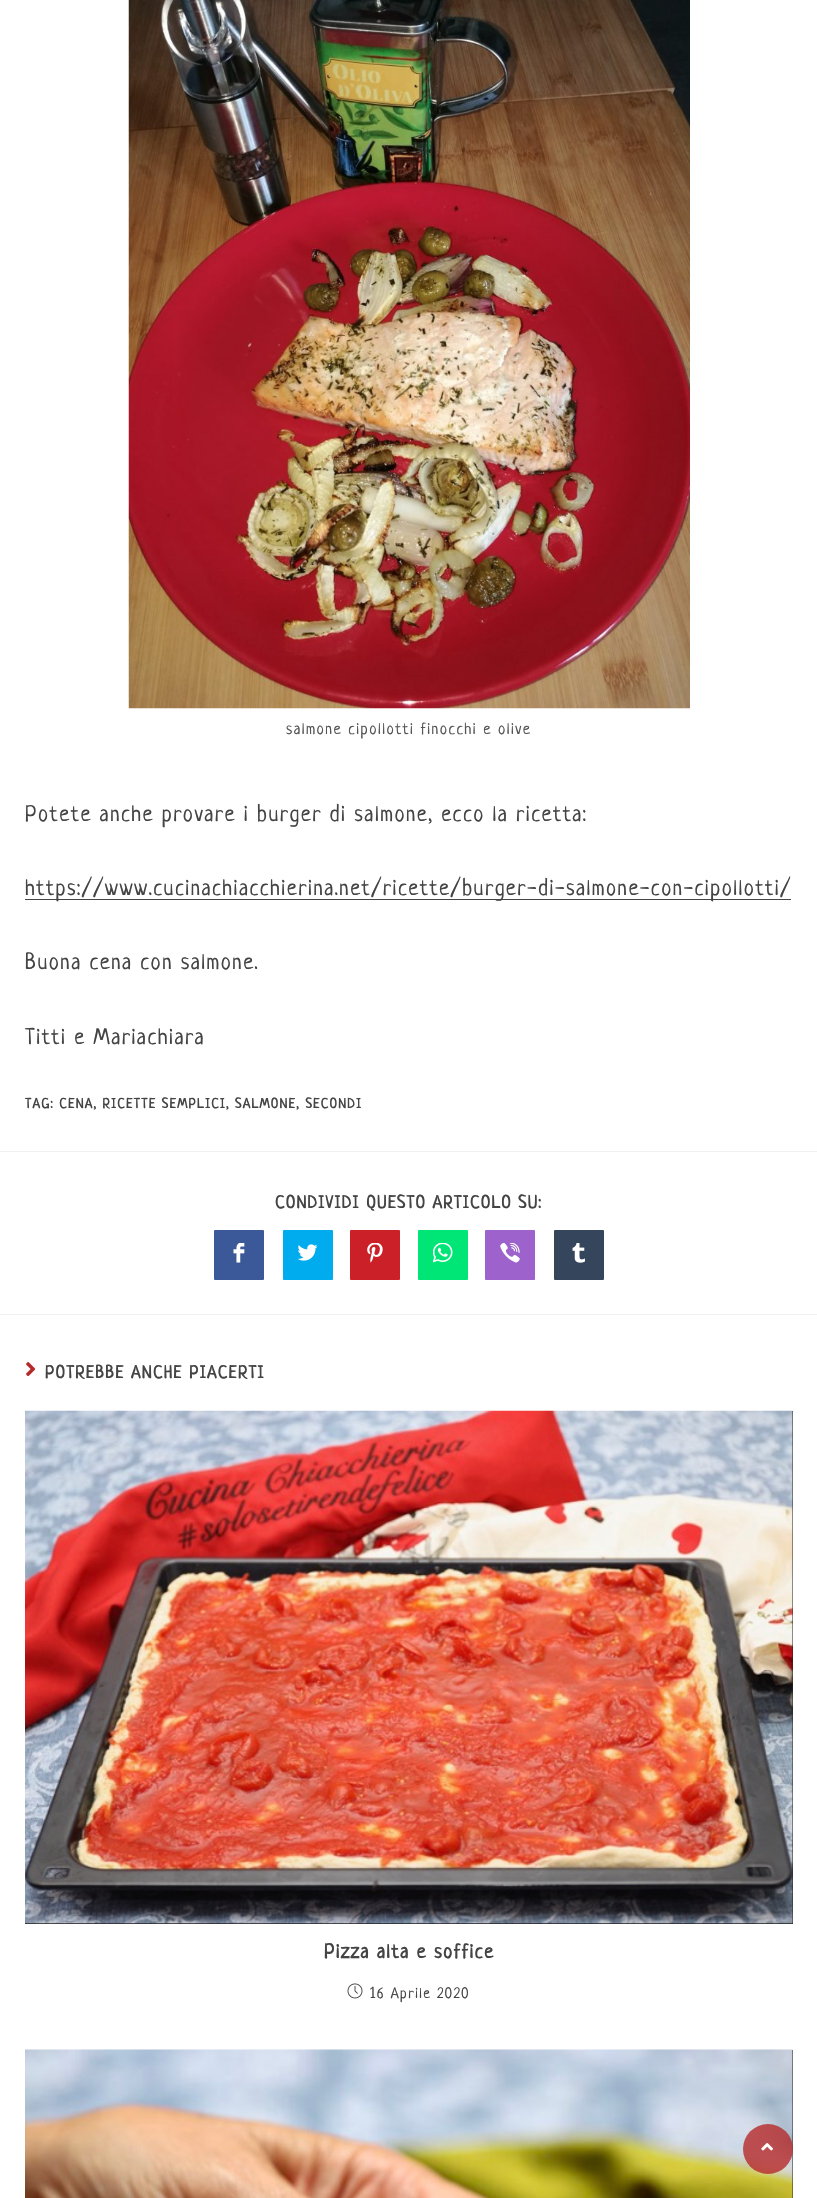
void draw(SkCanvas* canvas) {
	SkPaint paint;
	paint.setAntiAlias(true);
	auto spacedText = [&](const char* s, float x, float y, const SkFont& font, const SkPaint& ink, float letter, float word) {
		std::vector<SkGlyphID> glyphs(font.countText(s, strlen(s), SkTextEncoding::kUTF8));
		std::vector<float> xs(glyphs.size());
		font.textToGlyphs(s, strlen(s), SkTextEncoding::kUTF8, glyphs);
		font.getXPos(glyphs, xs, x);
		float extra = 0;
		for (size_t i = 0; i < glyphs.size(); i++) {
			xs[i] += extra;
			extra += letter + word * (glyphs[i] == font.unicharToGlyph(' '));
		}
		canvas->drawTextBlob(SkTextBlob::MakeFromPosHGlyphs(glyphs, xs, y, font), 0, 0, ink);
	};
	canvas->clear(0xffffffff);
	canvas->drawImageRect(SkImages::DeferredFromEncodedData(SkData::MakeFromFileName("img1.png")), SkRect::MakeXYWH(128, 0, 562, 709), SkSamplingOptions());
	SkFont f1(fontMgr->matchFamilyStyle("Neucha", SkFontStyle::Normal()), 16.25);
	f1.setSubpixel(true);
	paint.setColor(0xff555555);
	spacedText("salmone cipollotti finocchi e olive", 286, 734, f1, paint, 1.5, 0);
	SkFont f2(fontMgr->matchFamilyStyle("Neucha", SkFontStyle::Normal()), 22.5);
	f2.setSubpixel(true);
	paint.setColor(0xff444444);
	spacedText("Potete anche provare i burger di salmone, ecco la ricetta:", 25, 821, f2, paint, 1.5, 0);
	canvas->drawRect(SkRect::MakeXYWH(25, 899, 766, 1), paint);
	spacedText("https://www.cucinachiacchierina.net/ricette/burger-di-salmone-con-cipollotti/", 25, 895, f2, paint, 1.5, 0);
	spacedText("Buona cena con salmone.", 25, 969, f2, paint, 1.5, 0);
	spacedText("Titti e Mariachiara", 25, 1044, f2, paint, 1.5, 0);
	SkFont f3(fontMgr->matchFamilyStyle("Neucha", SkFontStyle::Bold()), 13.75);
	f3.setSubpixel(true);
	spacedText("TAG: CENA, RICETTE SEMPLICI, SALMONE, SECONDI", 25, 1108, f3, paint, 1.5, 0);
	paint.setColor(0xfff1f1f1);
	canvas->drawRect(SkRect::MakeXYWH(0, 1151, 817, 1), paint);
	SkFont f4(fontMgr->matchFamilyStyle("Neucha", SkFontStyle::Bold()), 17.5);
	f4.setSubpixel(true);
	paint.setColor(0xff444444);
	spacedText("CONDIVIDI QUESTO ARTICOLO SU:", 275, 1208, f4, paint, 1.5, 0);
	paint.setColor(0xff3b5998);
	canvas->drawRoundRect(SkRect::MakeXYWH(214, 1230, 50, 50), 1, 1, paint);
	canvas->drawImageRect(SkImages::DeferredFromEncodedData(SkData::MakeFromFileName("img2.png")), SkRect::MakeXYWH(233, 1243, 12, 20), SkSamplingOptions());
	paint.setColor(0xff00aced);
	canvas->drawRoundRect(SkRect::MakeXYWH(283, 1230, 50, 50), 1, 1, paint);
	canvas->drawImageRect(SkImages::DeferredFromEncodedData(SkData::MakeFromFileName("img3.png")), SkRect::MakeXYWH(298, 1244, 20, 17), SkSamplingOptions());
	paint.setColor(0xffcb2027);
	canvas->drawRoundRect(SkRect::MakeXYWH(350, 1230, 50, 50), 1, 1, paint);
	canvas->drawImageRect(SkImages::DeferredFromEncodedData(SkData::MakeFromFileName("img4.png")), SkRect::MakeXYWH(367, 1243, 16, 20), SkSamplingOptions());
	paint.setColor(0xff00e676);
	canvas->drawRoundRect(SkRect::MakeXYWH(418, 1230, 50, 50), 1, 1, paint);
	canvas->drawImageRect(SkImages::DeferredFromEncodedData(SkData::MakeFromFileName("img5.png")), SkRect::MakeXYWH(433, 1243, 20, 20), SkSamplingOptions());
	paint.setColor(0xff9d62cc);
	canvas->drawRoundRect(SkRect::MakeXYWH(485, 1230, 50, 50), 1, 1, paint);
	canvas->drawImageRect(SkImages::DeferredFromEncodedData(SkData::MakeFromFileName("img6.png")), SkRect::MakeXYWH(500, 1243, 20, 20), SkSamplingOptions());
	paint.setColor(0xff35465c);
	canvas->drawRoundRect(SkRect::MakeXYWH(554, 1230, 50, 50), 1, 1, paint);
	canvas->drawImageRect(SkImages::DeferredFromEncodedData(SkData::MakeFromFileName("img7.png")), SkRect::MakeXYWH(572, 1243, 13, 20), SkSamplingOptions());
	paint.setColor(0xfff1f1f1);
	canvas->drawRect(SkRect::MakeXYWH(0, 1314, 817, 1), paint);
	canvas->drawImageRect(SkImages::DeferredFromEncodedData(SkData::MakeFromFileName("img8.png")), SkRect::MakeXYWH(26, 1362, 10, 15), SkSamplingOptions());
	paint.setColor(0xff444444);
	spacedText("POTREBBE ANCHE PIACERTI", 45, 1378, f4, paint, 1.5, 0);
	paint.setColor(0xff222222);
	canvas->drawRect(SkRect::MakeXYWH(25, 1411, 768, 513), paint);
	canvas->drawImageRect(SkImages::DeferredFromEncodedData(SkData::MakeFromFileName("img9.png")), SkRect::MakeXYWH(25, 1410, 768, 514), SkSamplingOptions());
	SkFont f5(fontMgr->matchFamilyStyle("Neucha", SkFontStyle::Bold()), 20);
	f5.setSubpixel(true);
	paint.setColor(0xff444444);
	spacedText("Pizza alta e soffice", 324, 1958, f5, paint, 1.5, 0);
	canvas->drawImageRect(SkImages::DeferredFromEncodedData(SkData::MakeFromFileName("img10.png")), SkRect::MakeXYWH(347, 1983, 16, 16), SkSamplingOptions());
	SkFont f6(fontMgr->matchFamilyStyle("Neucha", SkFontStyle::Normal()), 15);
	f6.setSubpixel(true);
	spacedText("16 Aprile 2020", 370, 1998, f6, paint, 1.5, 0);
	paint.setColor(0xff222222);
	canvas->drawRect(SkRect::MakeXYWH(792, 2050, 1, 148), paint);
	canvas->drawImageRect(SkImages::DeferredFromEncodedData(SkData::MakeFromFileName("img11.png")), SkRect::MakeXYWH(25, 2049, 768, 149), SkSamplingOptions());
	paint.setColor(0xccb52929);
	canvas->drawCircle(768, 2149, 25, paint);
	canvas->drawImageRect(SkImages::DeferredFromEncodedData(SkData::MakeFromFileName("img12.png")), SkRect::MakeXYWH(761, 2143, 12, 8), SkSamplingOptions());
}
